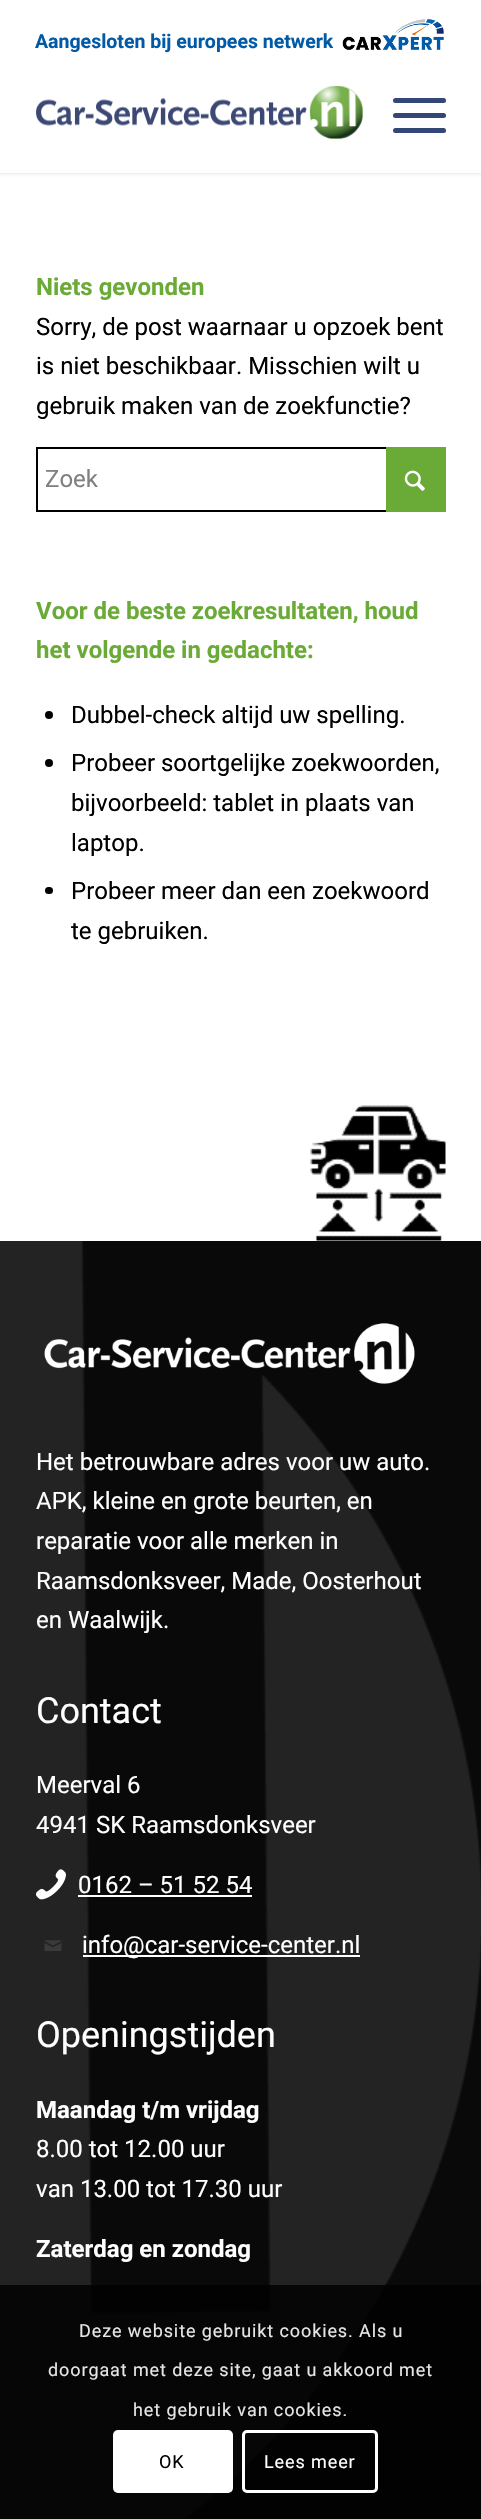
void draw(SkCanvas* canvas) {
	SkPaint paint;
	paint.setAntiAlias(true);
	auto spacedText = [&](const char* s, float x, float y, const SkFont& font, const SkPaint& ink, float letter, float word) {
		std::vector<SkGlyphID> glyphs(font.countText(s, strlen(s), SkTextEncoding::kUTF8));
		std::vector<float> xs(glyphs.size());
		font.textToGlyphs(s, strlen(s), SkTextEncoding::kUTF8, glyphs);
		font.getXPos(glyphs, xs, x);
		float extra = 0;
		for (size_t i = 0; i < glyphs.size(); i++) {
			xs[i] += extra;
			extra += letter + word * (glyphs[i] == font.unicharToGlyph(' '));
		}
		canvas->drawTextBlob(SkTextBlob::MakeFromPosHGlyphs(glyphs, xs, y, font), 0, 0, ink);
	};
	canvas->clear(0xffffffff);
	paint.setColor(0x1a000000);
	paint.setMaskFilter(SkMaskFilter::MakeBlur(kNormal_SkBlurStyle, 1.5));
	canvas->drawRect(SkRect::MakeXYWH(-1, -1, 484, 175), paint);
	paint.setMaskFilter(nullptr);
	paint.setColor(0xffffffff);
	canvas->drawRect(SkRect::MakeXYWH(0, 0, 481, 173), paint);
	SkFont f1(fontMgr->matchFamilyStyle("Roboto", SkFontStyle::Bold()), 19.5);
	f1.setSubpixel(true);
	paint.setColor(0xff005aa7);
	canvas->drawString("Aangesloten bij europees netwerk", 35, 48, f1, paint);
	canvas->drawImageRect(SkImages::DeferredFromEncodedData(SkData::MakeFromFileName("img1.png")), SkRect::MakeXYWH(342, 19, 102, 31), SkSamplingOptions());
	canvas->drawImageRect(SkImages::DeferredFromEncodedData(SkData::MakeFromFileName("img2.png")), SkRect::MakeXYWH(36, 85, 327, 54), SkSamplingOptions());
	paint.setColor(0xff334777);
	canvas->drawRoundRect(SkRect::MakeXYWH(393, 113, 53, 5), 2.5, 2.5, paint);
	canvas->drawRoundRect(SkRect::MakeXYWH(393, 98, 53, 5), 2.5, 2.5, paint);
	canvas->drawRoundRect(SkRect::MakeXYWH(393, 128, 53, 5), 2.5, 2.5, paint);
	SkFont f2(fontMgr->matchFamilyStyle("Roboto", SkFontStyle::Bold()), 24);
	f2.setSubpixel(true);
	paint.setColor(0xff6aaa36);
	canvas->drawString("Niets gevonden", 36, 295, f2, paint);
	SkFont f3(fontMgr->matchFamilyStyle("Roboto", SkFontStyle::Normal()), 24);
	f3.setSubpixel(true);
	paint.setColor(0xff000000);
	canvas->drawString("Sorry, de post waarnaar u opzoek bent", 36, 335, f3, paint);
	canvas->drawString("is niet beschikbaar. Misschien wilt u", 36, 374, f3, paint);
	canvas->drawString("gebruik maken van de zoekfunctie?", 36, 414, f3, paint);
	paint.setStroke(true);
	paint.setStrokeWidth(2);
	canvas->drawRect(SkRect::MakeXYWH(37, 448, 408, 63), paint);
	paint.setStroke(false);
	paint.setColor(0xff808080);
	canvas->drawString("Zoek", 45, 487, f3, paint);
	paint.setColor(0xff6aaa36);
	canvas->drawRect(SkRect::MakeXYWH(386, 447, 60, 65), paint);
	canvas->drawImageRect(SkImages::DeferredFromEncodedData(SkData::MakeFromFileName("img3.png")), SkRect::MakeXYWH(404, 470, 21, 21), SkSamplingOptions());
	canvas->drawString("Voor de beste zoekresultaten, houd", 36, 619, f2, paint);
	canvas->drawString("het volgende in gedachte:", 36, 658, f2, paint);
	paint.setColor(0xff000000);
	canvas->drawCircle(49, 715, 4, paint);
	canvas->drawString("Dubbel-check altijd uw spelling.", 71, 723, f3, paint);
	canvas->drawCircle(49, 763, 4, paint);
	canvas->drawString("Probeer soortgelijke zoekwoorden,", 71, 771, f3, paint);
	canvas->drawString("bijvoorbeeld: tablet in plaats van", 71, 811, f3, paint);
	canvas->drawString("laptop.", 71, 851, f3, paint);
	canvas->drawRoundRect(SkRect::MakeXYWH(45, 887, 8, 7), 3.5, 3.5, paint);
	canvas->drawString("Probeer meer dan een zoekwoord", 71, 899, f3, paint);
	canvas->drawString("te gebruiken.", 71, 939, f3, paint);
	canvas->drawImageRect(SkImages::DeferredFromEncodedData(SkData::MakeFromFileName("img4.png")), SkRect::MakeXYWH(310, 1105, 136, 136), SkSamplingOptions());
	paint.setColor(0xff090909);
	canvas->drawRect(SkRect::MakeXYWH(80, 1241, 401, 1278), paint);
	canvas->drawImageRect(SkImages::DeferredFromEncodedData(SkData::MakeFromFileName("img5.png")), SkRect::MakeXYWH(0, 1241, 481, 1278), SkSamplingOptions());
	canvas->drawImageRect(SkImages::DeferredFromEncodedData(SkData::MakeFromFileName("img6.png")), SkRect::MakeXYWH(44, 1323, 371, 61), SkSamplingOptions());
	paint.setColor(0xffffffff);
	canvas->drawString("Het betrouwbare adres voor uw auto.", 36, 1470, f3, paint);
	canvas->drawString("APK, kleine en grote beurten, en", 36, 1509, f3, paint);
	canvas->drawString("reparatie voor alle merken in", 36, 1549, f3, paint);
	canvas->drawString("Raamsdonksveer, Made, Oosterhout", 36, 1589, f3, paint);
	canvas->drawString("en Waalwijk.", 36, 1628, f3, paint);
	SkFont f4(fontMgr->matchFamilyStyle("Roboto", SkFontStyle::Normal()), 36);
	f4.setSubpixel(true);
	canvas->drawString("Contact", 36, 1723, f4, paint);
	canvas->drawString("Meerval 6", 36, 1793, f3, paint);
	canvas->drawString("4941 SK Raamsdonksveer", 36, 1833, f3, paint);
	canvas->drawImageRect(SkImages::DeferredFromEncodedData(SkData::MakeFromFileName("img7.png")), SkRect::MakeXYWH(36, 1869, 30, 31), SkSamplingOptions());
	canvas->drawString("0162 – 51 52 54", 78, 1893, f3, paint);
	canvas->drawRect(SkRect::MakeXYWH(78, 1895, 174, 2), paint);
	canvas->drawImageRect(SkImages::DeferredFromEncodedData(SkData::MakeFromFileName("img8.png")), SkRect::MakeXYWH(44, 1940, 18, 11), SkSamplingOptions());
	canvas->drawRect(SkRect::MakeXYWH(83, 1955, 277, 2), paint);
	canvas->drawString("info@car-service-center.nl", 82, 1953, f3, paint);
	canvas->drawString("Openingstijden", 36, 2047, f4, paint);
	canvas->drawString("Maandag t/m vrijdag", 36, 2118, f2, paint);
	canvas->drawString("8.00 tot 12.00 uur", 36, 2157, f3, paint);
	canvas->drawString("van 13.00 tot 17.30 uur", 36, 2197, f3, paint);
	canvas->drawString("Zaterdag en zondag", 36, 2257, f2, paint);
	paint.setColor(0xd9000000);
	canvas->drawRect(SkRect::MakeXYWH(0, 2285, 481, 234), paint);
	SkFont f5(fontMgr->matchFamilyStyle("Roboto", SkFontStyle::Normal()), 18);
	f5.setSubpixel(true);
	paint.setColor(0xffe6e6e6);
	spacedText("Deze website gebruikt cookies. Als u", 79, 2337, f5, paint, 0.9, 0);
	spacedText("doorgaat met deze site, gaat u akkoord met", 48, 2376, f5, paint, 0.9, 0);
	spacedText("het gebruik van cookies.", 133, 2416, f5, paint, 0.9, 0);
	paint.setColor(0xffffffff);
	canvas->drawRoundRect(SkRect::MakeXYWH(113, 2430, 120, 63), 5, 5, paint);
	paint.setColor(0xff000000);
	spacedText("OK", 159, 2468, f5, paint, 0.9, 0);
	paint.setStroke(true);
	paint.setStrokeWidth(3);
	paint.setColor(0xffffffff);
	canvas->drawRoundRect(SkRect::MakeXYWH(243.5, 2431.5, 133, 60), 3.5, 3.5, paint);
	paint.setStroke(false);
	spacedText("Lees meer", 264, 2468, f5, paint, 0.9, 0);
}
